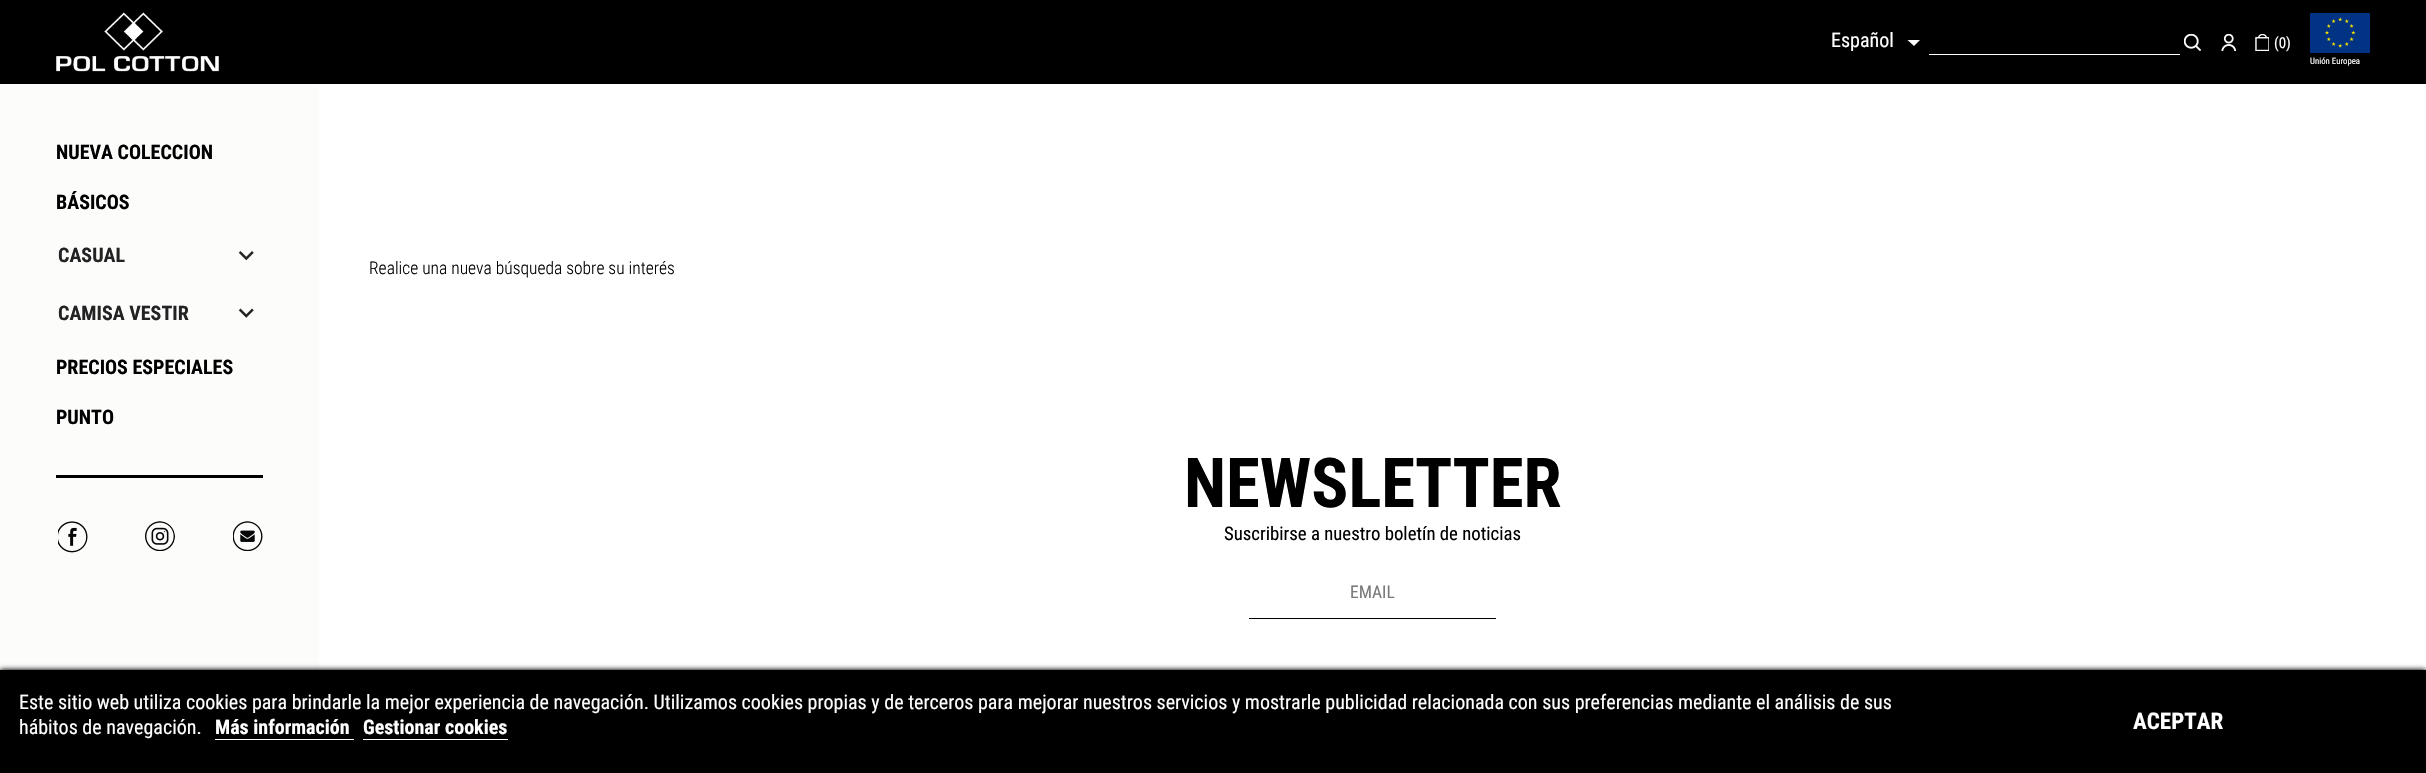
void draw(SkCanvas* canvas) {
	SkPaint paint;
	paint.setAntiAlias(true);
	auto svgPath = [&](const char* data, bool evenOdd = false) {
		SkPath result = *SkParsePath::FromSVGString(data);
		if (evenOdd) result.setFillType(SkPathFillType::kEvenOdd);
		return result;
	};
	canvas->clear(0xffffffff);
	paint.setColor(0xff000000);
	canvas->drawRect(SkRect::MakeXYWH(0, 0, 2426, 84), paint);
	canvas->drawImageRect(SkImages::DeferredFromEncodedData(SkData::MakeFromFileName("img1.png")), SkRect::MakeXYWH(56, 12, 163, 60), SkSamplingOptions());
	SkFont f1(fontMgr->matchFamilyStyle("Roboto Condensed", SkFontStyle::Normal()), 20);
	f1.setSubpixel(true);
	paint.setColor(0xffffffff);
	canvas->drawString("Español", 1831, 47, f1, paint);
	canvas->drawPath(svgPath("M1907.5 40H1920L1914 46Z"), paint);
	canvas->drawImageRect(SkImages::DeferredFromEncodedData(SkData::MakeFromFileName("img2.png")), SkRect::MakeXYWH(2184, 34, 17, 17), SkSamplingOptions());
	canvas->drawRect(SkRect::MakeXYWH(1929, 54, 251, 1), paint);
	canvas->drawImageRect(SkImages::DeferredFromEncodedData(SkData::MakeFromFileName("img3.png")), SkRect::MakeXYWH(2221, 34, 15, 17), SkSamplingOptions());
	canvas->drawImageRect(SkImages::DeferredFromEncodedData(SkData::MakeFromFileName("img4.png")), SkRect::MakeXYWH(2255, 34, 14, 17), SkSamplingOptions());
	SkFont f2(fontMgr->matchFamilyStyle("Roboto Condensed", SkFontStyle::Normal()), 15);
	f2.setSubpixel(true);
	canvas->drawString("(0)", 2274, 48, f2, paint);
	canvas->drawImageRect(SkImages::DeferredFromEncodedData(SkData::MakeFromFileName("img5.png")), SkRect::MakeXYWH(2310, 13, 60, 40), SkSamplingOptions());
	SkFont f3(fontMgr->matchFamilyStyle("Roboto Condensed", SkFontStyle::Normal()), 8.75);
	f3.setSubpixel(true);
	canvas->drawString("Unión Europea", 2310, 64, f3, paint);
	paint.setColor(0xfffcfcfb);
	canvas->drawRect(SkRect::MakeXYWH(0, 84, 319, 586), paint);
	paint.setColor(0xff000000);
	paint.setMaskFilter(SkMaskFilter::MakeBlur(kNormal_SkBlurStyle, 3));
	canvas->drawRect(SkRect::MakeXYWH(0, 671, 2426, 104), paint);
	paint.setMaskFilter(nullptr);
	canvas->drawRect(SkRect::MakeXYWH(56, 475, 207, 3), paint);
	SkFont f4(fontMgr->matchFamilyStyle("Roboto Condensed", SkFontStyle::Bold()), 20);
	f4.setSubpixel(true);
	canvas->drawString("NUEVA COLECCION", 56, 159, f4, paint);
	canvas->drawString("BÁSICOS", 56, 209, f4, paint);
	paint.setColor(0xff232323);
	canvas->drawString("CASUAL", 58, 262, f4, paint);
	canvas->drawImageRect(SkImages::DeferredFromEncodedData(SkData::MakeFromFileName("img6.png")), SkRect::MakeXYWH(238, 251, 16, 10), SkSamplingOptions());
	canvas->drawString("CAMISA VESTIR", 58, 320, f4, paint);
	canvas->drawImageRect(SkImages::DeferredFromEncodedData(SkData::MakeFromFileName("img7.png")), SkRect::MakeXYWH(238, 308, 16, 10), SkSamplingOptions());
	paint.setColor(0xff000000);
	canvas->drawString("PRECIOS ESPECIALES", 56, 374, f4, paint);
	canvas->drawString("PUNTO", 56, 424, f4, paint);
	canvas->drawImageRect(SkImages::DeferredFromEncodedData(SkData::MakeFromFileName("img8.png")), SkRect::MakeXYWH(58, 521, 30, 32), SkSamplingOptions());
	canvas->drawImageRect(SkImages::DeferredFromEncodedData(SkData::MakeFromFileName("img9.png")), SkRect::MakeXYWH(145, 521, 30, 30), SkSamplingOptions());
	canvas->drawImageRect(SkImages::DeferredFromEncodedData(SkData::MakeFromFileName("img10.png")), SkRect::MakeXYWH(233, 521, 30, 30), SkSamplingOptions());
	SkFont f5(fontMgr->matchFamilyStyle("Roboto Condensed", SkFontStyle(300, SkFontStyle::kNormal_Width, SkFontStyle::kUpright_Slant)), 17.5);
	f5.setSubpixel(true);
	canvas->drawString("Realice una nueva búsqueda sobre su interés", 369, 274, f5, paint);
	SkFont f6(fontMgr->matchFamilyStyle("Roboto Condensed", SkFontStyle::Bold()), 68.75);
	f6.setSubpixel(true);
	canvas->drawString("NEWSLETTER", 1184, 507, f6, paint);
	SkFont f7(fontMgr->matchFamilyStyle("Roboto Condensed", SkFontStyle::Normal()), 18.75);
	f7.setSubpixel(true);
	canvas->drawString("Suscribirse a nuestro boletín de noticias", 1224, 540, f7, paint);
	canvas->drawRect(SkRect::MakeXYWH(1249, 618, 247, 1), paint);
	SkFont f8(fontMgr->matchFamilyStyle("Roboto Condensed", SkFontStyle::Normal()), 17.5);
	f8.setSubpixel(true);
	paint.setColor(0xff7a7a7a);
	canvas->drawString("EMAIL", 1350, 598, f8, paint);
	paint.setColor(0xff000000);
	paint.setMaskFilter(SkMaskFilter::MakeBlur(kNormal_SkBlurStyle, 3));
	canvas->drawRect(SkRect::MakeXYWH(0, 671, 2426, 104), paint);
	paint.setMaskFilter(nullptr);
	canvas->drawRect(SkRect::MakeXYWH(0, 670, 2426, 103), paint);
	paint.setColor(0xffffffff);
	canvas->drawString("Este sitio web utiliza cookies para brindarle la mejor experiencia de navegación. Utilizamos cookies propias y de terceros para mejorar nuestros servicios y mostrarle publicidad relacionada con sus preferencias mediante el análisis de sus", 19, 709, f1, paint);
	canvas->drawString("hábitos de navegación.", 19, 734, f1, paint);
	canvas->drawString("Más información", 215, 734, f4, paint);
	canvas->drawRect(SkRect::MakeXYWH(215, 739, 139, 1), paint);
	canvas->drawString("Gestionar cookies", 363, 734, f4, paint);
	canvas->drawRect(SkRect::MakeXYWH(363, 739, 145, 1), paint);
	SkFont f9(fontMgr->matchFamilyStyle("Roboto Condensed", SkFontStyle::Bold()), 23);
	f9.setSubpixel(true);
	canvas->drawString("ACEPTAR", 2133, 729, f9, paint);
}
